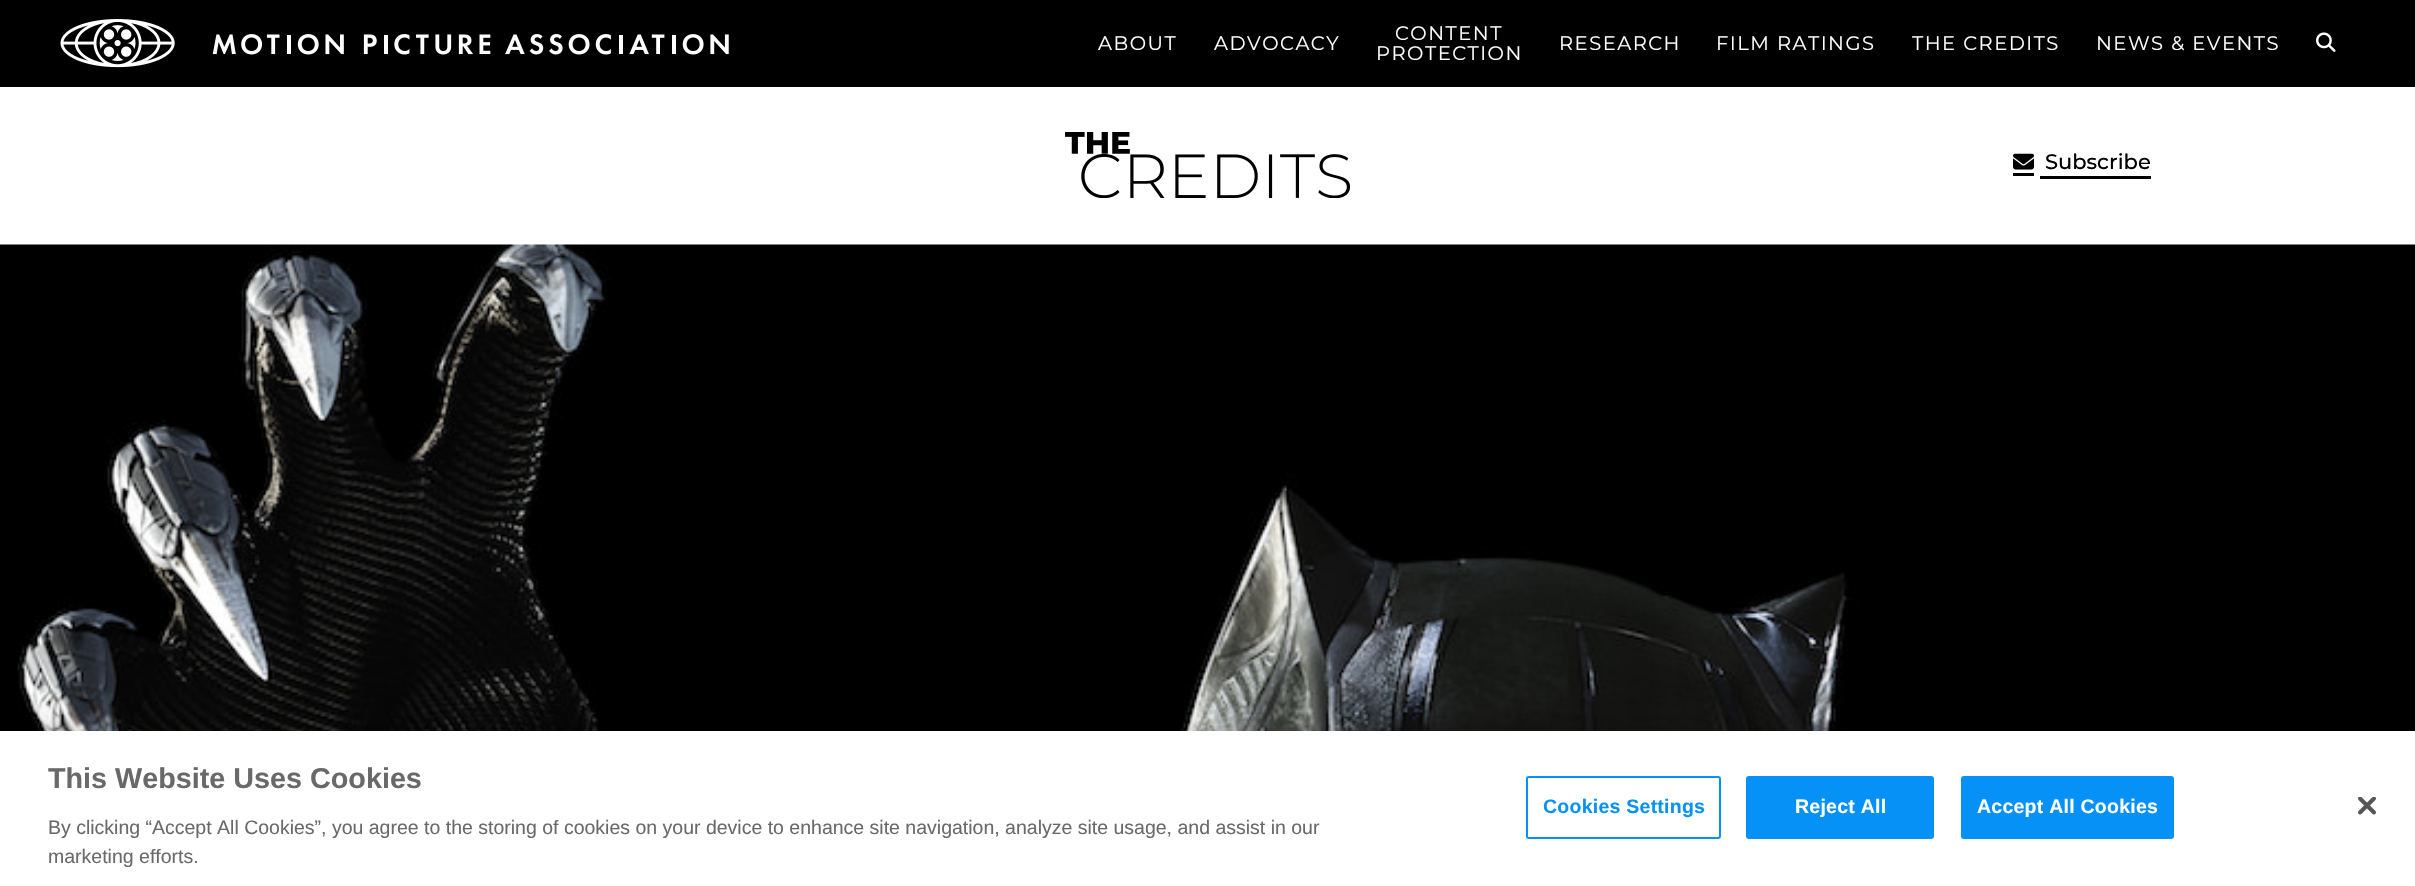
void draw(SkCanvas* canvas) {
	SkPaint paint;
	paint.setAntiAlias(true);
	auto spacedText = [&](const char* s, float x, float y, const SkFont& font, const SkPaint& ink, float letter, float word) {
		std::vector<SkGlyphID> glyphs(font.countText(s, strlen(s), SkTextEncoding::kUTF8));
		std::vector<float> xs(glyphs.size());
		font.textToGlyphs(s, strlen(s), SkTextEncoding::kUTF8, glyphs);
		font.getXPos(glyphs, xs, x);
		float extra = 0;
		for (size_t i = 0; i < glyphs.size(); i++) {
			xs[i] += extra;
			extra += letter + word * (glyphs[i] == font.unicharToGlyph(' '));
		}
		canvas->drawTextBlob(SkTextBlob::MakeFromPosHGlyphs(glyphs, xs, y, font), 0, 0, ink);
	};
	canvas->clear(0xffffffff);
	paint.setColor(0xff000000);
	canvas->drawRect(SkRect::MakeXYWH(0, 0, 2415, 87), paint);
	canvas->drawImageRect(SkImages::DeferredFromEncodedData(SkData::MakeFromFileName("img1.png")), SkRect::MakeXYWH(60, 19, 669, 49), SkSamplingOptions());
	SkFont f1(fontMgr->matchFamilyStyle("Montserrat", SkFontStyle::Normal()), 19.5);
	f1.setSubpixel(true);
	paint.setColor(0xffffffff);
	spacedText("ABOUT", 1098, 50, f1, paint, 1.5, 0);
	spacedText("ADVOCACY", 1214, 50, f1, paint, 1.5, 0);
	spacedText("CONTENT", 1395, 40, f1, paint, 1.5, 0);
	spacedText("PROTECTION", 1376, 60, f1, paint, 1.5, 0);
	spacedText("RESEARCH", 1559, 50, f1, paint, 1.5, 0);
	spacedText("FILM RATINGS", 1716, 50, f1, paint, 1.5, 0);
	spacedText("THE CREDITS", 1912, 50, f1, paint, 1.5, 0);
	spacedText("NEWS & EVENTS", 2096, 50, f1, paint, 1.5, 0);
	canvas->drawImageRect(SkImages::DeferredFromEncodedData(SkData::MakeFromFileName("img2.png")), SkRect::MakeXYWH(2316, 32, 20, 20), SkSamplingOptions());
	canvas->drawImageRect(SkImages::DeferredFromEncodedData(SkData::MakeFromFileName("img3.png")), SkRect::MakeXYWH(1065, 132, 285, 66), SkSamplingOptions());
	paint.setColor(0xff000000);
	canvas->drawRect(SkRect::MakeXYWH(2013, 173, 21, 3), paint);
	canvas->drawRect(SkRect::MakeXYWH(2040, 176, 111, 3), paint);
	canvas->drawImageRect(SkImages::DeferredFromEncodedData(SkData::MakeFromFileName("img4.png")), SkRect::MakeXYWH(2013, 153, 21, 17), SkSamplingOptions());
	SkFont f2(fontMgr->matchFamilyStyle("Montserrat", SkFontStyle(500, SkFontStyle::kNormal_Width, SkFontStyle::kUpright_Slant)), 21);
	f2.setSubpixel(true);
	canvas->drawString("Subscribe", 2045, 169, f2, paint);
	canvas->drawImageRect(SkImages::DeferredFromEncodedData(SkData::MakeFromFileName("img5.png")), SkRect::MakeXYWH(0, 244, 2415, 487), SkSamplingOptions());
	paint.setColor(0x33000000);
	paint.setMaskFilter(SkMaskFilter::MakeBlur(kNormal_SkBlurStyle, 13.5));
	canvas->drawRect(SkRect::MakeXYWH(0, 731, 2415, 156), paint);
	paint.setMaskFilter(nullptr);
	paint.setColor(0xffffffff);
	canvas->drawRect(SkRect::MakeXYWH(0, 731, 2415, 155), paint);
	SkFont f3(fontMgr->matchFamilyStyle("Liberation Sans", SkFontStyle::Bold()), 28.75);
	f3.setSubpixel(true);
	paint.setColor(0xff696969);
	canvas->drawString("This Website Uses Cookies", 48, 788, f3, paint);
	SkFont f4(fontMgr->matchFamilyStyle("Liberation Sans", SkFontStyle::Normal()), 19.5);
	f4.setSubpixel(true);
	canvas->drawString("By clicking “Accept All Cookies”, you agree to the storing of cookies on your device to enhance site navigation, analyze site usage, and assist in our", 48, 834, f4, paint);
	canvas->drawString("marketing efforts.", 48, 863, f4, paint);
	paint.setStroke(true);
	paint.setStrokeWidth(2);
	paint.setColor(0xff0591f5);
	canvas->drawRoundRect(SkRect::MakeXYWH(1527, 777, 193, 61), 2, 2, paint);
	SkFont f5(fontMgr->matchFamilyStyle("Liberation Sans", SkFontStyle::Bold()), 19.5);
	f5.setSubpixel(true);
	paint.setStroke(false);
	spacedText("Cookies Settings", 1543, 813, f5, paint, 0.25, 0);
	canvas->drawRoundRect(SkRect::MakeXYWH(1747, 777, 186, 61), 2, 2, paint);
	paint.setStroke(true);
	canvas->drawRoundRect(SkRect::MakeXYWH(1747, 777, 186, 61), 2, 2, paint);
	paint.setStroke(false);
	paint.setColor(0xffffffff);
	spacedText("Reject All", 1795, 813, f5, paint, 0.25, 0);
	paint.setColor(0xff0591f5);
	canvas->drawRoundRect(SkRect::MakeXYWH(1962, 777, 211, 61), 2, 2, paint);
	paint.setStroke(true);
	canvas->drawRoundRect(SkRect::MakeXYWH(1962, 777, 211, 61), 2, 2, paint);
	paint.setStroke(false);
	paint.setColor(0xffffffff);
	spacedText("Accept All Cookies", 1977, 813, f5, paint, 0.25, 0);
	canvas->drawImageRect(SkImages::DeferredFromEncodedData(SkData::MakeFromFileName("img6.png")), SkRect::MakeXYWH(2358, 797, 18, 18), SkSamplingOptions());
}
